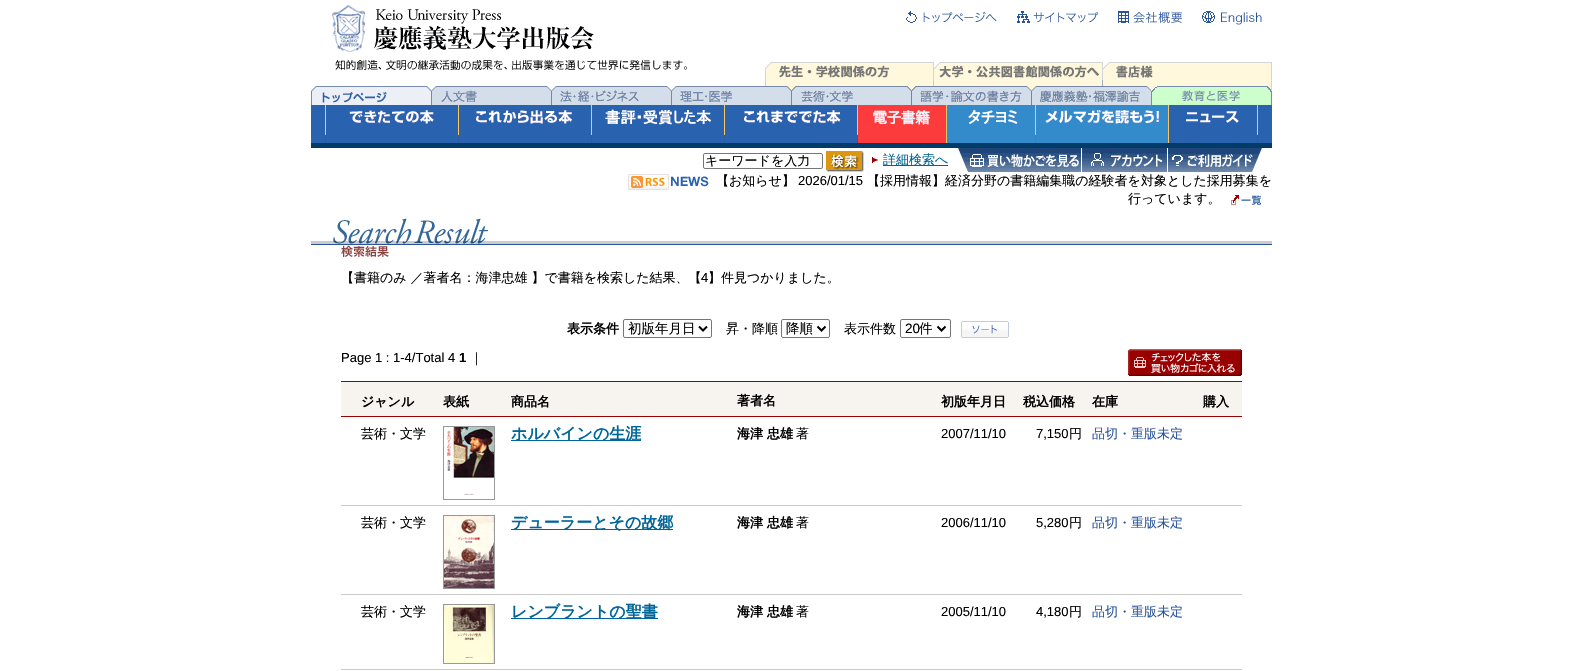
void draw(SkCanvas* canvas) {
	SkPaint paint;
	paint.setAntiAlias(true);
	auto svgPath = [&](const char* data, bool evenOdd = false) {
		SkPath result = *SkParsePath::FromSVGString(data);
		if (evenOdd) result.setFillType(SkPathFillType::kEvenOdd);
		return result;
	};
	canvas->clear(0xffffffff);
	canvas->drawImageRect(SkImages::DeferredFromEncodedData(SkData::MakeFromFileName("img1.png")), SkRect::MakeXYWH(332, 5, 355, 65), SkSamplingOptions());
	canvas->drawImageRect(SkImages::DeferredFromEncodedData(SkData::MakeFromFileName("img2.png")), SkRect::MakeXYWH(906, 11, 91, 12), SkSamplingOptions());
	canvas->drawImageRect(SkImages::DeferredFromEncodedData(SkData::MakeFromFileName("img3.png")), SkRect::MakeXYWH(1017, 11, 81, 12), SkSamplingOptions());
	canvas->drawImageRect(SkImages::DeferredFromEncodedData(SkData::MakeFromFileName("img4.png")), SkRect::MakeXYWH(1118, 11, 64, 12), SkSamplingOptions());
	canvas->drawImageRect(SkImages::DeferredFromEncodedData(SkData::MakeFromFileName("img5.png")), SkRect::MakeXYWH(1202, 11, 60, 14), SkSamplingOptions());
	canvas->drawImageRect(SkImages::DeferredFromEncodedData(SkData::MakeFromFileName("img6.png")), SkRect::MakeXYWH(765, 62, 169, 18), SkSamplingOptions());
	canvas->drawImageRect(SkImages::DeferredFromEncodedData(SkData::MakeFromFileName("img7.png")), SkRect::MakeXYWH(934, 62, 169, 18), SkSamplingOptions());
	canvas->drawImageRect(SkImages::DeferredFromEncodedData(SkData::MakeFromFileName("img8.png")), SkRect::MakeXYWH(1103, 62, 169, 18), SkSamplingOptions());
	canvas->drawImageRect(SkImages::DeferredFromEncodedData(SkData::MakeFromFileName("img9.png")), SkRect::MakeXYWH(311, 86, 120, 19), SkSamplingOptions());
	canvas->drawImageRect(SkImages::DeferredFromEncodedData(SkData::MakeFromFileName("img10.png")), SkRect::MakeXYWH(431, 86, 120, 19), SkSamplingOptions());
	canvas->drawImageRect(SkImages::DeferredFromEncodedData(SkData::MakeFromFileName("img11.png")), SkRect::MakeXYWH(551, 86, 120, 19), SkSamplingOptions());
	canvas->drawImageRect(SkImages::DeferredFromEncodedData(SkData::MakeFromFileName("img12.png")), SkRect::MakeXYWH(671, 80, 120, 25), SkSamplingOptions());
	canvas->drawImageRect(SkImages::DeferredFromEncodedData(SkData::MakeFromFileName("img13.png")), SkRect::MakeXYWH(791, 80, 120, 25), SkSamplingOptions());
	canvas->drawImageRect(SkImages::DeferredFromEncodedData(SkData::MakeFromFileName("img14.png")), SkRect::MakeXYWH(911, 80, 120, 25), SkSamplingOptions());
	canvas->drawImageRect(SkImages::DeferredFromEncodedData(SkData::MakeFromFileName("img15.png")), SkRect::MakeXYWH(1031, 80, 120, 25), SkSamplingOptions());
	canvas->drawImageRect(SkImages::DeferredFromEncodedData(SkData::MakeFromFileName("img16.png")), SkRect::MakeXYWH(1151, 80, 121, 25), SkSamplingOptions());
	paint.setColor(0xff2962ae);
	canvas->drawRect(SkRect::MakeXYWH(311, 105, 961, 38), paint);
	canvas->drawImageRect(SkImages::DeferredFromEncodedData(SkData::MakeFromFileName("img17.png")), SkRect::MakeXYWH(325, 105, 1, 38), SkSamplingOptions());
	canvas->drawImageRect(SkImages::DeferredFromEncodedData(SkData::MakeFromFileName("img18.png")), SkRect::MakeXYWH(349, 110, 85, 14), SkSamplingOptions());
	canvas->drawImageRect(SkImages::DeferredFromEncodedData(SkData::MakeFromFileName("img17.png")), SkRect::MakeXYWH(458, 105, 1, 38), SkSamplingOptions());
	canvas->drawImageRect(SkImages::DeferredFromEncodedData(SkData::MakeFromFileName("img19.png")), SkRect::MakeXYWH(476, 110, 96, 14), SkSamplingOptions());
	canvas->drawImageRect(SkImages::DeferredFromEncodedData(SkData::MakeFromFileName("img17.png")), SkRect::MakeXYWH(591, 105, 1, 38), SkSamplingOptions());
	canvas->drawImageRect(SkImages::DeferredFromEncodedData(SkData::MakeFromFileName("img20.png")), SkRect::MakeXYWH(605, 109, 106, 16), SkSamplingOptions());
	canvas->drawImageRect(SkImages::DeferredFromEncodedData(SkData::MakeFromFileName("img17.png")), SkRect::MakeXYWH(724, 105, 1, 38), SkSamplingOptions());
	canvas->drawImageRect(SkImages::DeferredFromEncodedData(SkData::MakeFromFileName("img21.png")), SkRect::MakeXYWH(744, 110, 97, 14), SkSamplingOptions());
	canvas->drawImageRect(SkImages::DeferredFromEncodedData(SkData::MakeFromFileName("img17.png")), SkRect::MakeXYWH(857, 105, 1, 38), SkSamplingOptions());
	canvas->drawImageRect(SkImages::DeferredFromEncodedData(SkData::MakeFromFileName("img22.png")), SkRect::MakeXYWH(858, 105, 88, 38), SkSamplingOptions());
	paint.setColor(0xfff7c767);
	canvas->drawRect(SkRect::MakeXYWH(946, 105, 1, 38), paint);
	canvas->drawImageRect(SkImages::DeferredFromEncodedData(SkData::MakeFromFileName("img23.png")), SkRect::MakeXYWH(947, 105, 88, 38), SkSamplingOptions());
	canvas->drawImageRect(SkImages::DeferredFromEncodedData(SkData::MakeFromFileName("img24.png")), SkRect::MakeXYWH(1035, 105, 1, 38), SkSamplingOptions());
	canvas->drawImageRect(SkImages::DeferredFromEncodedData(SkData::MakeFromFileName("img25.png")), SkRect::MakeXYWH(1036, 105, 132, 38), SkSamplingOptions());
	canvas->drawRect(SkRect::MakeXYWH(1168, 105, 1, 38), paint);
	canvas->drawImageRect(SkImages::DeferredFromEncodedData(SkData::MakeFromFileName("img26.png")), SkRect::MakeXYWH(1186, 111, 53, 12), SkSamplingOptions());
	canvas->drawImageRect(SkImages::DeferredFromEncodedData(SkData::MakeFromFileName("img17.png")), SkRect::MakeXYWH(1257, 105, 1, 38), SkSamplingOptions());
	paint.setColor(0xff013b67);
	canvas->drawRect(SkRect::MakeXYWH(311, 143, 961, 5), paint);
	paint.setStroke(true);
	paint.setStrokeWidth(1);
	paint.setColor(0xff767676);
	canvas->drawRoundRect(SkRect::MakeXYWH(703.5, 153.5, 119, 15), 1.5, 1.5, paint);
	canvas->save();
	canvas->clipRect(SkRect::MakeXYWH(705, 155, 116, 12));
	SkFont f1(fontMgr->matchFamilyStyle("WenQuanYi Zen Hei", SkFontStyle(500, SkFontStyle::kNormal_Width, SkFontStyle::kUpright_Slant)), 13);
	f1.setSubpixel(true);
	paint.setStroke(false);
	paint.setColor(0xff000000);
	canvas->drawString("キーワードを入力", 705, 165, f1, paint);
	canvas->restore();
	canvas->drawImageRect(SkImages::DeferredFromEncodedData(SkData::MakeFromFileName("img27.png")), SkRect::MakeXYWH(826, 151, 38, 21), SkSamplingOptions());
	canvas->drawImageRect(SkImages::DeferredFromEncodedData(SkData::MakeFromFileName("img28.png")), SkRect::MakeXYWH(872, 157, 6, 6), SkSamplingOptions());
	paint.setColor(0xff006699);
	canvas->drawRect(SkRect::MakeXYWH(883, 165, 65, 1), paint);
	canvas->drawString("詳細検索へ", 883, 164, f1, paint);
	canvas->drawImageRect(SkImages::DeferredFromEncodedData(SkData::MakeFromFileName("img29.png")), SkRect::MakeXYWH(958, 148, 123, 24), SkSamplingOptions());
	canvas->drawImageRect(SkImages::DeferredFromEncodedData(SkData::MakeFromFileName("img30.png")), SkRect::MakeXYWH(1082, 148, 85, 24), SkSamplingOptions());
	canvas->drawImageRect(SkImages::DeferredFromEncodedData(SkData::MakeFromFileName("img31.png")), SkRect::MakeXYWH(1168, 148, 94, 24), SkSamplingOptions());
	canvas->drawImageRect(SkImages::DeferredFromEncodedData(SkData::MakeFromFileName("img32.png")), SkRect::MakeXYWH(628, 174, 41, 16), SkSamplingOptions());
	canvas->drawImageRect(SkImages::DeferredFromEncodedData(SkData::MakeFromFileName("img33.png")), SkRect::MakeXYWH(671, 174, 40, 13), SkSamplingOptions());
	paint.setColor(0xff000000);
	canvas->drawString("【お知らせ】", 716, 185, f1, paint);
	SkFont f2(fontMgr->matchFamilyStyle("Liberation Sans", SkFontStyle::Normal()), 13);
	f2.setSubpixel(true);
	canvas->drawString("2026/01/15", 798, 185, f2, paint);
	canvas->drawString("【採用情報】経済分野の書籍編集職の経験者を対象とした採用募集を", 867, 185, f1, paint);
	canvas->drawString("行っています。", 1128, 203, f1, paint);
	canvas->drawImageRect(SkImages::DeferredFromEncodedData(SkData::MakeFromFileName("img34.png")), SkRect::MakeXYWH(1231, 195, 30, 10), SkSamplingOptions());
	canvas->drawImageRect(SkImages::DeferredFromEncodedData(SkData::MakeFromFileName("img35.png")), SkRect::MakeXYWH(332, 218, 160, 27), SkSamplingOptions());
	paint.setColor(0xffcccccc);
	canvas->drawRect(SkRect::MakeXYWH(311, 241, 21, 3), paint);
	canvas->drawRect(SkRect::MakeXYWH(492, 241, 780, 3), paint);
	paint.setColor(0xff2a549a);
	canvas->drawRect(SkRect::MakeXYWH(311, 244, 21, 1), paint);
	canvas->drawRect(SkRect::MakeXYWH(492, 244, 780, 1), paint);
	canvas->drawImageRect(SkImages::DeferredFromEncodedData(SkData::MakeFromFileName("img36.png")), SkRect::MakeXYWH(341, 245, 48, 12), SkSamplingOptions());
	paint.setColor(0xff000000);
	canvas->drawString("【書籍のみ ／著者名：海津忠雄 】で書籍を検索した結果、【", 341, 282, f1, paint);
	canvas->drawString("4", 701, 282, f2, paint);
	canvas->drawString("】件見つかりました。", 708, 282, f1, paint);
	SkFont f3(fontMgr->matchFamilyStyle("WenQuanYi Zen Hei", SkFontStyle::Bold()), 13);
	f3.setSubpixel(true);
	canvas->drawString("表示条件", 567, 333, f3, paint);
	paint.setStroke(true);
	paint.setColor(0xff767676);
	canvas->drawRoundRect(SkRect::MakeXYWH(623.5, 319.5, 88, 18), 1.5, 1.5, paint);
	paint.setStrokeWidth(2);
	paint.setColor(0xff000000);
	canvas->drawPath(svgPath("M699 326.5L703 330.5L707 326.5"), paint);
	SkFont f4(fontMgr->matchFamilyStyle("WenQuanYi Zen Hei", SkFontStyle(500, SkFontStyle::kNormal_Width, SkFontStyle::kUpright_Slant)), 13.5);
	f4.setSubpixel(true);
	paint.setStroke(false);
	canvas->drawString("初版年月日", 628, 333, f4, paint);
	canvas->drawString("昇・降順", 726, 333, f1, paint);
	paint.setStroke(true);
	paint.setStrokeWidth(1);
	paint.setColor(0xff767676);
	canvas->drawRoundRect(SkRect::MakeXYWH(781.5, 319.5, 48, 18), 1.5, 1.5, paint);
	paint.setStrokeWidth(2);
	paint.setColor(0xff000000);
	canvas->drawPath(svgPath("M817.5 326.5L821.5 330.5L825.5 326.5"), paint);
	paint.setStroke(false);
	canvas->drawString("降順", 786, 333, f4, paint);
	canvas->drawString("表示件数", 844, 333, f1, paint);
	paint.setStroke(true);
	paint.setStrokeWidth(1);
	paint.setColor(0xff767676);
	canvas->drawRoundRect(SkRect::MakeXYWH(900.5, 319.5, 50, 18), 1.5, 1.5, paint);
	paint.setStrokeWidth(2);
	paint.setColor(0xff000000);
	canvas->drawPath(svgPath("M937.5 326.5L941.5 330.5L945.5 326.5"), paint);
	SkFont f5(fontMgr->matchFamilyStyle("Liberation Sans", SkFontStyle::Normal()), 13.5);
	f5.setSubpixel(true);
	paint.setStroke(false);
	canvas->drawString("20", 905, 333, f5, paint);
	canvas->drawString("件", 919, 333, f4, paint);
	canvas->drawImageRect(SkImages::DeferredFromEncodedData(SkData::MakeFromFileName("img37.png")), SkRect::MakeXYWH(961, 321, 48, 17), SkSamplingOptions());
	canvas->drawString("Page 1 : 1-4/Total 4", 341, 362, f2, paint);
	SkFont f6(fontMgr->matchFamilyStyle("Liberation Sans", SkFontStyle::Bold()), 13);
	f6.setSubpixel(true);
	canvas->drawString("1", 459, 362, f6, paint);
	canvas->drawString("｜", 470, 362, f1, paint);
	canvas->drawImageRect(SkImages::DeferredFromEncodedData(SkData::MakeFromFileName("img38.png")), SkRect::MakeXYWH(1128, 349, 114, 27), SkSamplingOptions());
	paint.setColor(0xff990000);
	canvas->drawRect(SkRect::MakeXYWH(341, 381, 901, 1), paint);
	paint.setColor(0xfff7f3ee);
	canvas->drawRect(SkRect::MakeXYWH(341, 382, 901, 34), paint);
	paint.setColor(0xff000000);
	canvas->drawString("ジャンル", 361, 406, f3, paint);
	canvas->drawString("表紙", 443, 406, f3, paint);
	canvas->drawString("商品名", 511, 406, f3, paint);
	canvas->drawString("著者名", 737, 405, f3, paint);
	canvas->drawString("初版年月日", 941, 406, f3, paint);
	canvas->drawString("税込価格", 1023, 406, f3, paint);
	canvas->drawString("在庫", 1092, 406, f3, paint);
	canvas->drawString("購入", 1203, 406, f3, paint);
	paint.setColor(0xff990000);
	canvas->drawRect(SkRect::MakeXYWH(341, 416, 901, 1), paint);
	paint.setColor(0xff000000);
	canvas->drawString("芸術・文学", 361, 438, f1, paint);
	paint.setStroke(true);
	paint.setStrokeWidth(1);
	paint.setColor(0xff999999);
	canvas->drawRect(SkRect::MakeXYWH(443.5, 426.5, 51, 73), paint);
	canvas->drawImageRect(SkImages::DeferredFromEncodedData(SkData::MakeFromFileName("img39.png")), SkRect::MakeXYWH(447, 427, 47, 68), SkSamplingOptions());
	paint.setStroke(false);
	paint.setColor(0xff006699);
	canvas->drawRect(SkRect::MakeXYWH(511, 440, 130, 1), paint);
	SkFont f7(fontMgr->matchFamilyStyle("WenQuanYi Zen Hei", SkFontStyle::Bold()), 16);
	f7.setSubpixel(true);
	canvas->drawString("ホルバインの生涯", 511, 439, f7, paint);
	paint.setColor(0xff000000);
	canvas->drawString("海津 忠雄", 737, 438, f3, paint);
	canvas->drawString("著", 796, 438, f1, paint);
	canvas->drawString("2007/11/10", 941, 438, f2, paint);
	canvas->drawString("7,150", 1036, 438, f2, paint);
	canvas->drawString("円", 1069, 438, f1, paint);
	paint.setColor(0xff2a549a);
	canvas->drawString("品切・重版未定", 1092, 438, f1, paint);
	paint.setColor(0xffcccccc);
	canvas->drawRect(SkRect::MakeXYWH(341, 505, 901, 1), paint);
	paint.setColor(0xff000000);
	canvas->drawString("芸術・文学", 361, 527, f1, paint);
	paint.setStroke(true);
	paint.setColor(0xff999999);
	canvas->drawRect(SkRect::MakeXYWH(443.5, 515.5, 51, 73), paint);
	canvas->drawImageRect(SkImages::DeferredFromEncodedData(SkData::MakeFromFileName("img40.png")), SkRect::MakeXYWH(444, 516, 50, 72), SkSamplingOptions());
	paint.setStroke(false);
	paint.setColor(0xff006699);
	canvas->drawRect(SkRect::MakeXYWH(511, 529, 162, 1), paint);
	canvas->drawString("デューラーとその故郷", 511, 528, f7, paint);
	paint.setColor(0xff000000);
	canvas->drawString("海津 忠雄", 737, 527, f3, paint);
	canvas->drawString("著", 796, 527, f1, paint);
	canvas->drawString("2006/11/10", 941, 527, f2, paint);
	canvas->drawString("5,280", 1036, 527, f2, paint);
	canvas->drawString("円", 1069, 527, f1, paint);
	paint.setColor(0xff2a549a);
	canvas->drawString("品切・重版未定", 1092, 527, f1, paint);
	paint.setColor(0xffcccccc);
	canvas->drawRect(SkRect::MakeXYWH(341, 594, 901, 1), paint);
	paint.setColor(0xff000000);
	canvas->drawString("芸術・文学", 361, 616, f1, paint);
	paint.setStroke(true);
	paint.setColor(0xff999999);
	canvas->drawRect(SkRect::MakeXYWH(443.5, 604.5, 51, 59), paint);
	canvas->drawImageRect(SkImages::DeferredFromEncodedData(SkData::MakeFromFileName("img41.png")), SkRect::MakeXYWH(444, 605, 50, 58), SkSamplingOptions());
	paint.setStroke(false);
	paint.setColor(0xff006699);
	canvas->drawRect(SkRect::MakeXYWH(511, 618, 147, 1), paint);
	canvas->drawString("レンブラントの聖書", 511, 617, f7, paint);
	paint.setColor(0xff000000);
	canvas->drawString("海津 忠雄", 737, 616, f3, paint);
	canvas->drawString("著", 796, 616, f1, paint);
	canvas->drawString("2005/11/10", 941, 616, f2, paint);
	canvas->drawString("4,180", 1036, 616, f2, paint);
	canvas->drawString("円", 1069, 616, f1, paint);
	paint.setColor(0xff2a549a);
	canvas->drawString("品切・重版未定", 1092, 616, f1, paint);
	paint.setColor(0xffcccccc);
	canvas->drawRect(SkRect::MakeXYWH(341, 669, 901, 1), paint);
}
